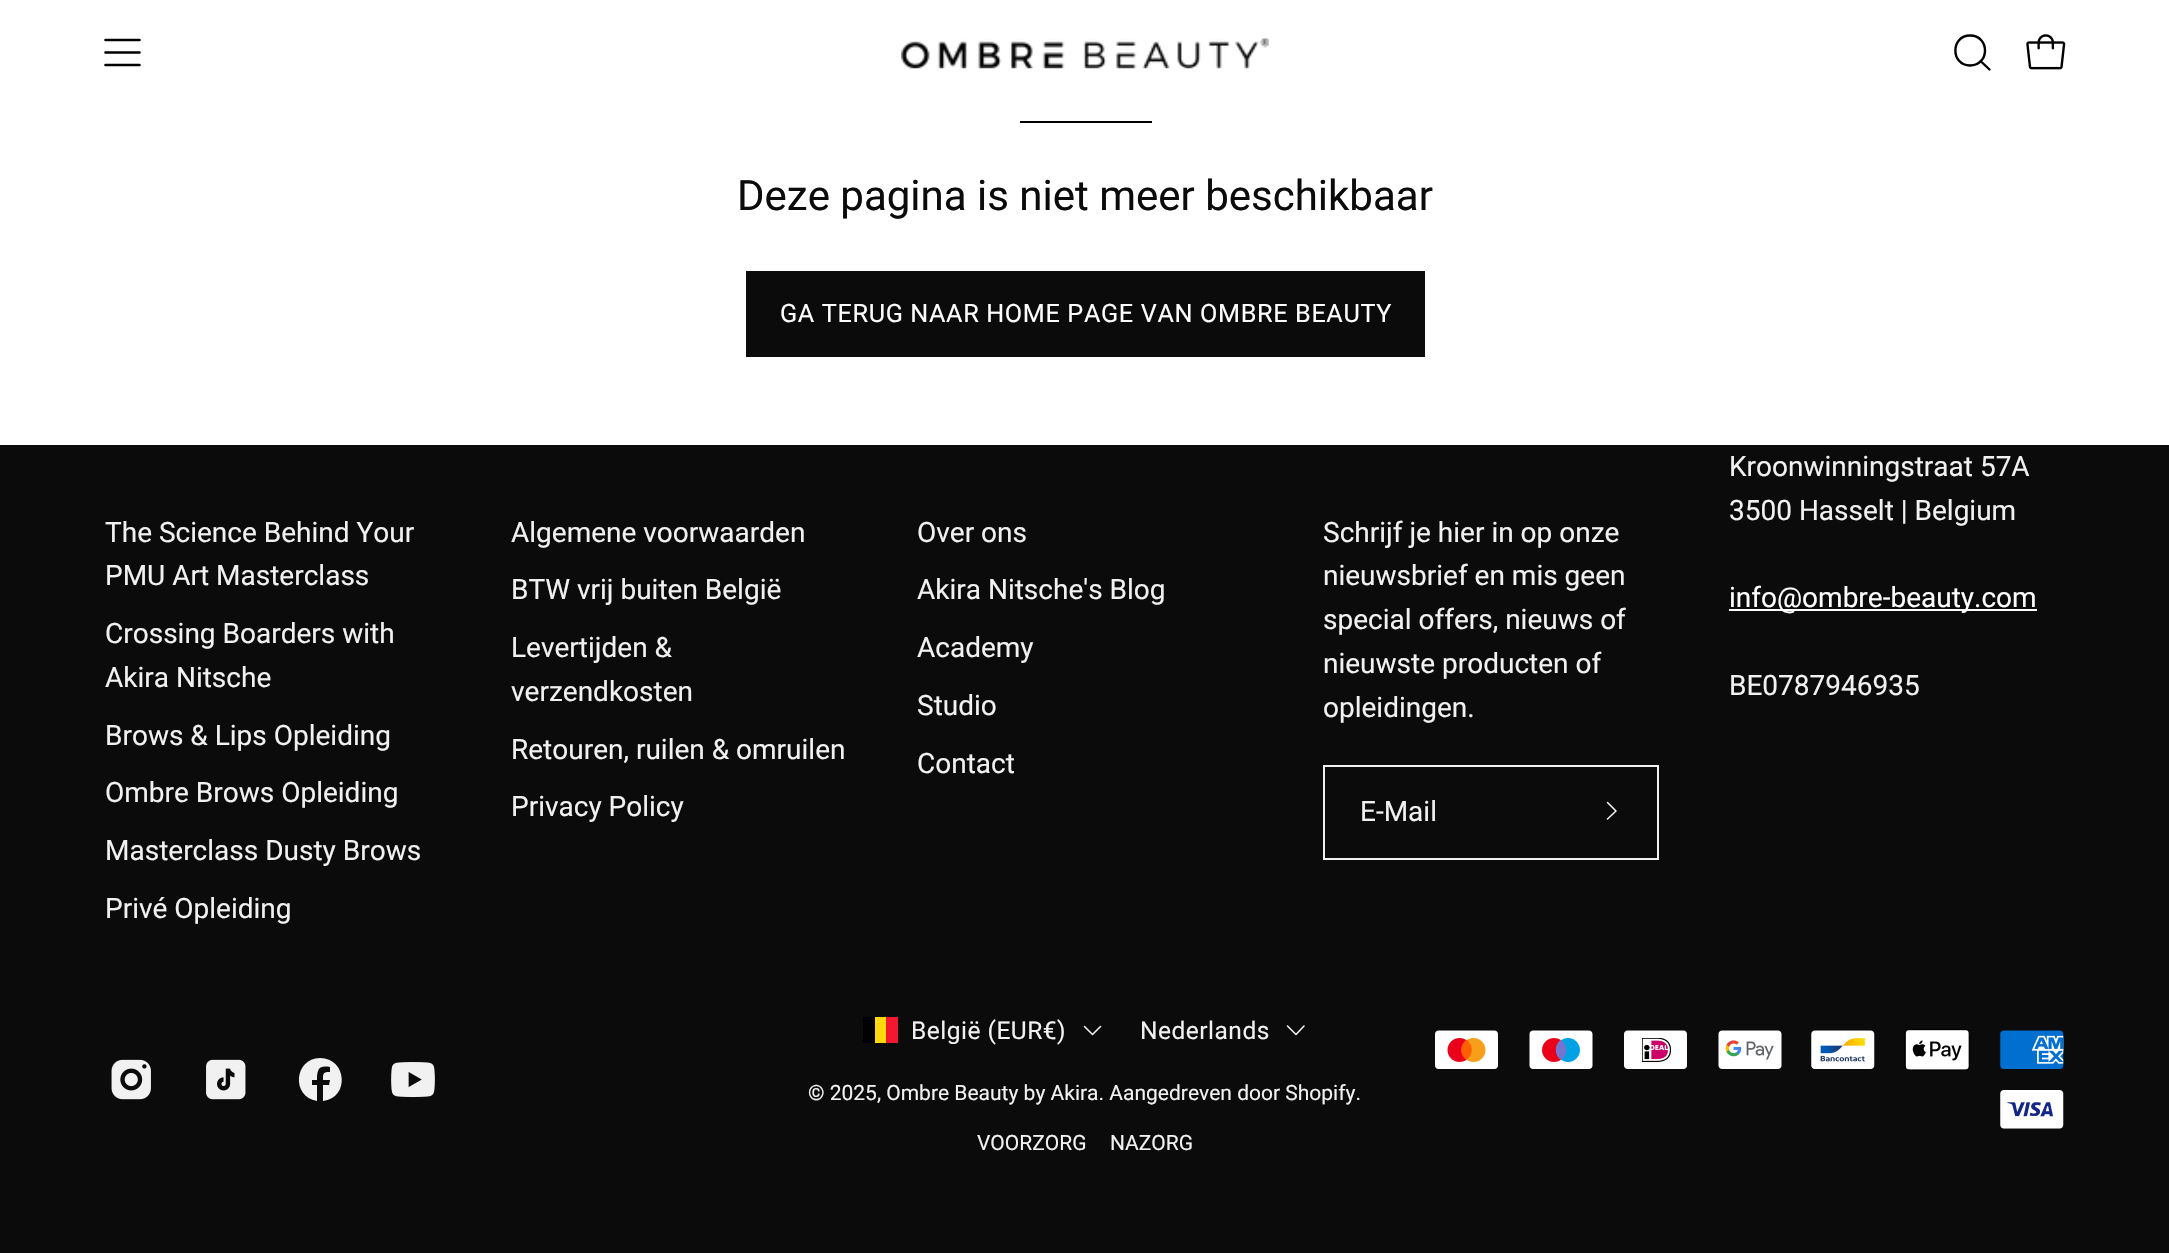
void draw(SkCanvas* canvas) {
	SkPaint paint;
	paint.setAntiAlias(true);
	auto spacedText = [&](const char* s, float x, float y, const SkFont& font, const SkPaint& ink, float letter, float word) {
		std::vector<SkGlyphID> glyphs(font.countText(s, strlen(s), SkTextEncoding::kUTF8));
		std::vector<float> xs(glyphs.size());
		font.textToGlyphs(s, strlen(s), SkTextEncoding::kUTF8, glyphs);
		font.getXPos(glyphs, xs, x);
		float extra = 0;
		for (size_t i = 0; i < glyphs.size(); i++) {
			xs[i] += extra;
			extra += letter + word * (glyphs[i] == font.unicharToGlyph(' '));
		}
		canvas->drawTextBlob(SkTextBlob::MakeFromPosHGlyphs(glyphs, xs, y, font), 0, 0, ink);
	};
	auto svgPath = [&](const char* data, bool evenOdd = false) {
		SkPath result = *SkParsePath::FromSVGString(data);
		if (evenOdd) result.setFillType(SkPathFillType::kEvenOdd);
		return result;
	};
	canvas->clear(0xff0b0b0b);
	paint.setColor(0xff0b0b0b);
	paint.setMaskFilter(SkMaskFilter::MakeBlur(kNormal_SkBlurStyle, 22));
	canvas->drawRect(SkRect::MakeXYWH(18, -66, 2135, 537), paint);
	paint.setMaskFilter(nullptr);
	paint.setColor(0xffffffff);
	canvas->drawRect(SkRect::MakeXYWH(0, 0, 2169, 445), paint);
	paint.setStroke(true);
	paint.setStrokeWidth(2.6);
	paint.setStrokeCap(SkPaint::kRound_Cap);
	paint.setStrokeJoin(SkPaint::kRound_Join);
	paint.setColor(0xff000000);
	canvas->drawPath(svgPath("M105.5 52.5H139.5M105.5 40H139.5M105.5 65H139.5"), paint);
	canvas->drawImageRect(SkImages::DeferredFromEncodedData(SkData::MakeFromFileName("img1.png")), SkRect::MakeXYWH(901, 38, 368, 31), SkSamplingOptions());
	paint.setStrokeWidth(2.4);
	canvas->drawPath(svgPath("M1970 65.5C1990 65.5 1990 35.5 1970 35.5C1950.5 35.5 1950.5 65.5 1970 65.5ZM1980.5 61L1989.5 69.5"), paint);
	canvas->drawImageRect(SkImages::DeferredFromEncodedData(SkData::MakeFromFileName("img2.png")), SkRect::MakeXYWH(2026, 34, 40, 36), SkSamplingOptions());
	paint.setStroke(false);
	canvas->drawRect(SkRect::MakeXYWH(1020, 121, 132, 2), paint);
	SkFont f1(fontMgr->matchFamilyStyle("Roboto", SkFontStyle::Normal()), 42);
	f1.setSubpixel(true);
	paint.setColor(0xff0b0b0b);
	canvas->drawString("Deze pagina is niet meer beschikbaar", 737, 210, f1, paint);
	canvas->drawRect(SkRect::MakeXYWH(746, 271, 679, 86), paint);
	SkFont f2(fontMgr->matchFamilyStyle("Roboto", SkFontStyle::Normal()), 25.2);
	f2.setSubpixel(true);
	paint.setColor(0xffffffff);
	spacedText("GA TERUG NAAR HOME PAGE VAN OMBRE BEAUTY", 780, 322, f2, paint, 0.65, 0);
	SkFont f3(fontMgr->matchFamilyStyle("Roboto", SkFontStyle::Normal()), 28);
	f3.setSubpixel(true);
	paint.setColor(0xfff1f1f1);
	canvas->drawString("The Science Behind Your", 105, 542, f3, paint);
	canvas->drawString("PMU Art Masterclass", 105, 585, f3, paint);
	canvas->drawString("Crossing Boarders with", 105, 643, f3, paint);
	canvas->drawString("Akira Nitsche", 105, 687, f3, paint);
	canvas->drawString("Brows & Lips Opleiding", 105, 745, f3, paint);
	canvas->drawString("Ombre Brows Opleiding", 105, 802, f3, paint);
	canvas->drawString("Masterclass Dusty Brows", 105, 860, f3, paint);
	canvas->drawString("Privé Opleiding", 105, 918, f3, paint);
	canvas->drawString("Algemene voorwaarden", 511, 542, f3, paint);
	canvas->drawString("BTW vrij buiten België", 511, 599, f3, paint);
	canvas->drawString("Levertijden &", 511, 657, f3, paint);
	canvas->drawString("verzendkosten", 511, 701, f3, paint);
	canvas->drawString("Retouren, ruilen & omruilen", 511, 759, f3, paint);
	canvas->drawString("Privacy Policy", 511, 816, f3, paint);
	canvas->drawString("Over ons", 917, 542, f3, paint);
	canvas->drawString("Akira Nitsche's Blog", 917, 599, f3, paint);
	canvas->drawString("Academy", 917, 657, f3, paint);
	canvas->drawString("Studio", 917, 715, f3, paint);
	canvas->drawString("Contact", 917, 773, f3, paint);
	canvas->drawString("Schrijf je hier in op onze", 1323, 542, f3, paint);
	canvas->drawString("nieuwsbrief en mis geen", 1323, 585, f3, paint);
	canvas->drawString("special offers, nieuws of", 1323, 629, f3, paint);
	canvas->drawString("nieuwste producten of", 1323, 673, f3, paint);
	canvas->drawString("opleidingen.", 1323, 717, f3, paint);
	canvas->drawRect(SkRect::MakeXYWH(1323, 765, 336, 2), paint);
	canvas->drawRect(SkRect::MakeXYWH(1323, 858, 242, 2), paint);
	canvas->drawRect(SkRect::MakeXYWH(1323, 765, 2, 94), paint);
	canvas->drawString("E-Mail", 1360, 821, f3, paint);
	canvas->drawRect(SkRect::MakeXYWH(1657, 765, 2, 94), paint);
	canvas->drawRect(SkRect::MakeXYWH(1565, 858, 94, 2), paint);
	paint.setStroke(true);
	paint.setStrokeWidth(1.6);
	canvas->drawPath(svgPath("M1607.5 802.5L1616 811L1607.5 819"), paint);
	paint.setStroke(false);
	canvas->drawString("Kroonwinningstraat 57A", 1729, 476, f3, paint);
	canvas->drawString("3500 Hasselt | Belgium", 1729, 520, f3, paint);
	paint.setColor(0xffffffff);
	canvas->drawRect(SkRect::MakeXYWH(1729, 609, 308, 2), paint);
	canvas->drawString("info@ombre-beauty.com", 1729, 607, f3, paint);
	paint.setColor(0xfff1f1f1);
	canvas->drawString("BE0787946935", 1729, 695, f3, paint);
	canvas->drawImageRect(SkImages::DeferredFromEncodedData(SkData::MakeFromFileName("img3.png")), SkRect::MakeXYWH(111, 1059, 40, 41), SkSamplingOptions());
	canvas->drawImageRect(SkImages::DeferredFromEncodedData(SkData::MakeFromFileName("img4.png")), SkRect::MakeXYWH(206, 1059, 40, 41), SkSamplingOptions());
	canvas->drawPath(svgPath("M320 1058C294 1058 291 1097 317 1101V1085H312V1080H317C317 1069 319 1065 330 1067V1072C323 1072 323 1073 323 1080H330L329 1085H323V1101C350 1098 347 1058 320 1058Z"), paint);
	canvas->drawImageRect(SkImages::DeferredFromEncodedData(SkData::MakeFromFileName("img5.png")), SkRect::MakeXYWH(391, 1062, 44, 35), SkSamplingOptions());
	paint.setColor(0xff000000);
	canvas->drawRect(SkRect::MakeXYWH(863, 1017, 12, 26), paint);
	paint.setColor(0xffffd90c);
	canvas->drawRect(SkRect::MakeXYWH(875, 1017, 11, 26), paint);
	paint.setColor(0xfff31830);
	canvas->drawRect(SkRect::MakeXYWH(886, 1017, 12, 26), paint);
	SkFont f4(fontMgr->matchFamilyStyle("Roboto", SkFontStyle::Normal()), 24.5);
	f4.setSubpixel(true);
	paint.setColor(0xfff1f1f1);
	spacedText("België (EUR€)", 911, 1039, f4, paint, 0.5, 0);
	paint.setStroke(true);
	canvas->drawPath(svgPath("M1100.5 1026.5L1092.5 1034.5L1084.5 1026.5"), paint);
	paint.setStroke(false);
	spacedText("Nederlands", 1140, 1039, f4, paint, 0.5, 0);
	paint.setStroke(true);
	canvas->drawPath(svgPath("M1304 1026L1296 1034.5L1287.5 1026"), paint);
	SkFont f5(fontMgr->matchFamilyStyle("Roboto", SkFontStyle::Normal()), 21);
	f5.setSubpixel(true);
	paint.setStroke(false);
	canvas->drawString("© 2025, Ombre Beauty by Akira. Aangedreven door Shopify.", 808, 1100, f5, paint);
	canvas->drawString("VOORZORG", 977, 1150, f5, paint);
	canvas->drawString("NAZORG", 1110, 1150, f5, paint);
	canvas->drawImageRect(SkImages::DeferredFromEncodedData(SkData::MakeFromFileName("img6.png")), SkRect::MakeXYWH(1435, 1030, 63, 39), SkSamplingOptions());
	canvas->drawImageRect(SkImages::DeferredFromEncodedData(SkData::MakeFromFileName("img7.png")), SkRect::MakeXYWH(1529, 1030, 64, 39), SkSamplingOptions());
	canvas->drawImageRect(SkImages::DeferredFromEncodedData(SkData::MakeFromFileName("img8.png")), SkRect::MakeXYWH(1624, 1030, 63, 39), SkSamplingOptions());
	canvas->drawImageRect(SkImages::DeferredFromEncodedData(SkData::MakeFromFileName("img9.png")), SkRect::MakeXYWH(1718, 1030, 64, 39), SkSamplingOptions());
	canvas->drawImageRect(SkImages::DeferredFromEncodedData(SkData::MakeFromFileName("img10.png")), SkRect::MakeXYWH(1811, 1030, 64, 39), SkSamplingOptions());
	canvas->drawImageRect(SkImages::DeferredFromEncodedData(SkData::MakeFromFileName("img11.png")), SkRect::MakeXYWH(1904, 1029, 66, 42), SkSamplingOptions());
	canvas->drawImageRect(SkImages::DeferredFromEncodedData(SkData::MakeFromFileName("img12.png")), SkRect::MakeXYWH(2000, 1030, 64, 39), SkSamplingOptions());
	canvas->drawImageRect(SkImages::DeferredFromEncodedData(SkData::MakeFromFileName("img13.png")), SkRect::MakeXYWH(2000, 1090, 64, 39), SkSamplingOptions());
}
